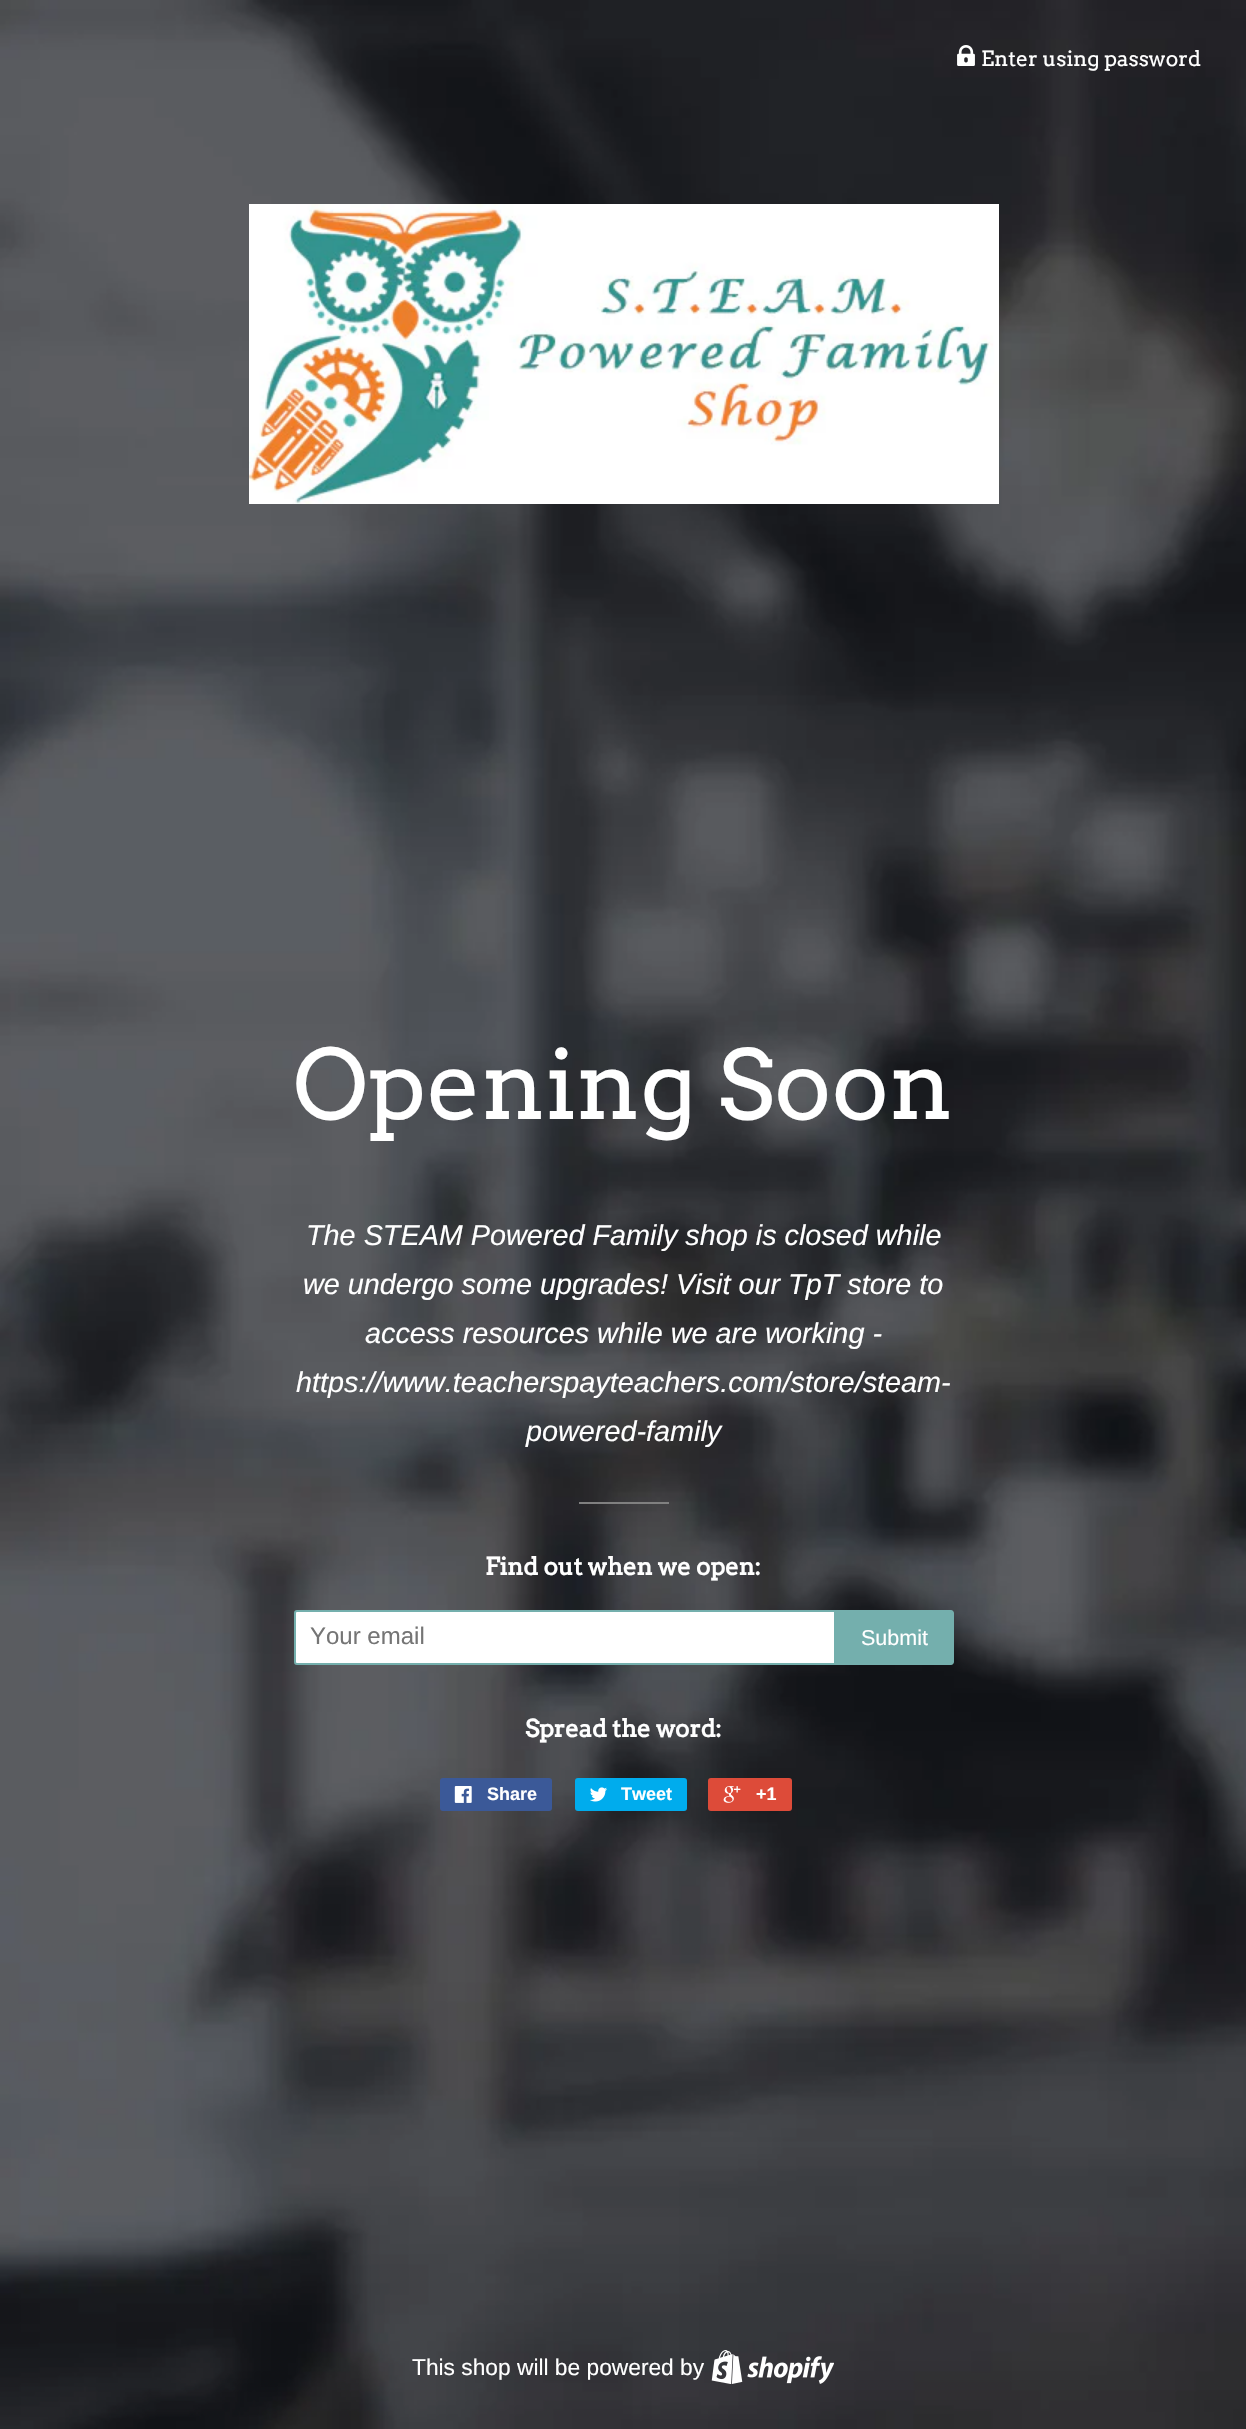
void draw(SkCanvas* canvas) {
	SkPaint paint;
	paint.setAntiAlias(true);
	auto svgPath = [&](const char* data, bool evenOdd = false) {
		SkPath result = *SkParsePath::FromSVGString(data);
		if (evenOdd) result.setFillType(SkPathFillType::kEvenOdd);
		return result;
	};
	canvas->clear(0xffffffff);
	canvas->drawImageRect(SkImages::DeferredFromEncodedData(SkData::MakeFromFileName("img1.png")), SkRect::MakeXYWH(0, 0, 1246, 2429), SkSamplingOptions());
	canvas->drawImageRect(SkImages::DeferredFromEncodedData(SkData::MakeFromFileName("img2.png")), SkRect::MakeXYWH(957, 45, 18, 21), SkSamplingOptions());
	SkFont f1(fontMgr->matchFamilyStyle("Arvo", SkFontStyle::Normal()), 21);
	f1.setSubpixel(true);
	paint.setColor(0xffffffff);
	canvas->drawString("Enter using password", 981, 66, f1, paint);
	canvas->drawImageRect(SkImages::DeferredFromEncodedData(SkData::MakeFromFileName("img3.png")), SkRect::MakeXYWH(249, 204, 750, 300), SkSamplingOptions());
	SkFont f2(fontMgr->matchFamilyStyle("Arvo", SkFontStyle::Normal()), 96);
	f2.setSubpixel(true);
	canvas->drawString("Opening Soon", 293, 1119, f2, paint);
	SkFont f3(fontMgr->matchFamilyStyle("Liberation Sans", SkFontStyle::Italic()), 28.8);
	f3.setSubpixel(true);
	canvas->drawString("The STEAM Powered Family shop is closed while", 306, 1245, f3, paint);
	canvas->drawString("we undergo some upgrades! Visit our TpT store to", 303, 1294, f3, paint);
	canvas->drawString("access resources while we are working -", 365, 1343, f3, paint);
	canvas->drawString("https://www.teacherspayteachers.com/store/steam-", 296, 1392, f3, paint);
	canvas->drawString("powered-family", 526, 1441, f3, paint);
	paint.setColor(0xff808080);
	canvas->drawRect(SkRect::MakeXYWH(579, 1502, 90, 2), paint);
	SkFont f4(fontMgr->matchFamilyStyle("Arvo", SkFontStyle::Bold()), 24);
	f4.setSubpixel(true);
	paint.setColor(0xffffffff);
	canvas->drawString("Find out when we open:", 485, 1575, f4, paint);
	canvas->drawPath(svgPath("M297 1611H835V1664H297C296 1664 295 1663 295 1662V1613C295 1612 296 1611 297 1611Z"), paint);
	paint.setStroke(true);
	paint.setStrokeWidth(2);
	paint.setColor(0xff74afad);
	canvas->drawPath(svgPath("M297 1611H835V1664H297C296 1664 295 1663 295 1662V1613C295 1612 296 1611 297 1611Z"), paint);
	SkFont f5(fontMgr->matchFamilyStyle("Liberation Sans", SkFontStyle::Normal()), 24);
	f5.setSubpixel(true);
	paint.setStroke(false);
	paint.setColor(0xff757575);
	canvas->drawString("Your email", 310, 1644, f5, paint);
	paint.setColor(0xff74afad);
	canvas->drawPath(svgPath("M836 1610H951C952.5 1610 954 1611.5 954 1613V1662C954 1663.5 952.5 1665 951 1665H836Z"), paint);
	SkFont f6(fontMgr->matchFamilyStyle("Liberation Sans", SkFontStyle::Normal()), 21.5);
	f6.setSubpixel(true);
	paint.setColor(0xffffffff);
	canvas->drawString("Submit", 861, 1645, f6, paint);
	canvas->drawString("Spread the word:", 525, 1737, f4, paint);
	paint.setColor(0xff3b5998);
	canvas->drawRoundRect(SkRect::MakeXYWH(440, 1778, 112, 33), 3, 3, paint);
	canvas->drawImageRect(SkImages::DeferredFromEncodedData(SkData::MakeFromFileName("img4.png")), SkRect::MakeXYWH(454, 1786, 18, 17), SkSamplingOptions());
	SkFont f7(fontMgr->matchFamilyStyle("Liberation Sans", SkFontStyle::Bold()), 18);
	f7.setSubpixel(true);
	paint.setColor(0xffffffff);
	canvas->drawString("Share", 487, 1800, f7, paint);
	paint.setColor(0xff00aced);
	canvas->drawRoundRect(SkRect::MakeXYWH(575, 1778, 112, 33), 3, 3, paint);
	canvas->drawImageRect(SkImages::DeferredFromEncodedData(SkData::MakeFromFileName("img5.png")), SkRect::MakeXYWH(590, 1787, 17, 15), SkSamplingOptions());
	paint.setColor(0xffffffff);
	canvas->drawString("Tweet", 621, 1800, f7, paint);
	paint.setColor(0xffdd4b39);
	canvas->drawRoundRect(SkRect::MakeXYWH(708, 1778, 84, 33), 3, 3, paint);
	canvas->drawImageRect(SkImages::DeferredFromEncodedData(SkData::MakeFromFileName("img6.png")), SkRect::MakeXYWH(723, 1786, 18, 17), SkSamplingOptions());
	paint.setColor(0xffffffff);
	canvas->drawString("+1", 756, 1800, f7, paint);
	SkFont f8(fontMgr->matchFamilyStyle("Liberation Sans", SkFontStyle::Normal()), 22.75);
	f8.setSubpixel(true);
	canvas->drawString("This shop will be powered by", 412, 2375, f8, paint);
	canvas->drawImageRect(SkImages::DeferredFromEncodedData(SkData::MakeFromFileName("img7.png")), SkRect::MakeXYWH(711, 2350, 123, 34), SkSamplingOptions());
}
